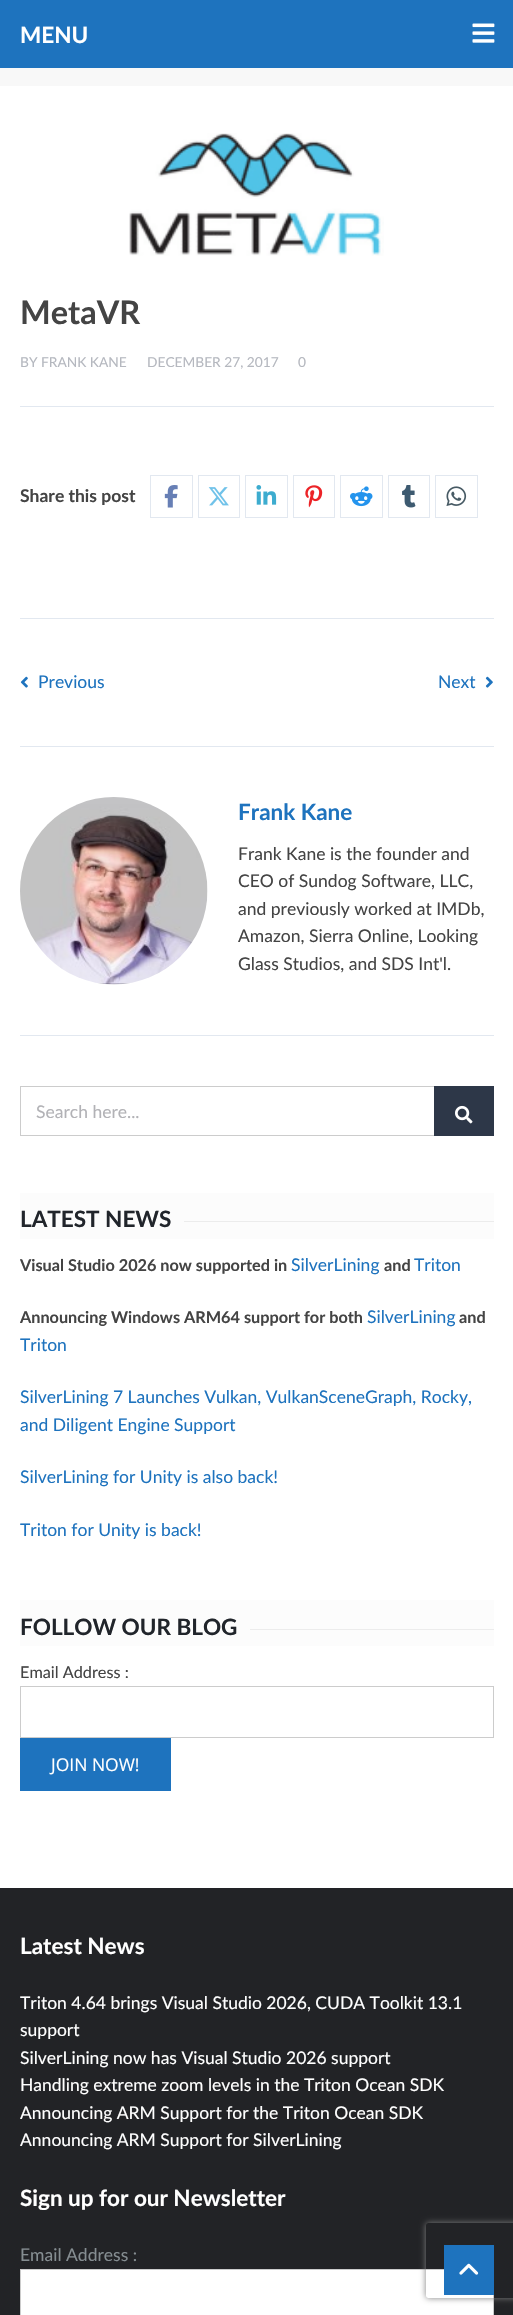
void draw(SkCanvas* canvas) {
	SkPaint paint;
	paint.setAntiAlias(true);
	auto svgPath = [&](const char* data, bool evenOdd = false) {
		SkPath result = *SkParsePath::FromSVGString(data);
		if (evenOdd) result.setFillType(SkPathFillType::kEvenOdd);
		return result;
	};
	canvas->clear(0xffffffff);
	paint.setColor(0xff1e73be);
	canvas->drawRect(SkRect::MakeXYWH(0, 0, 513, 68), paint);
	SkFont f1(fontMgr->matchFamilyStyle("Lato", SkFontStyle::Bold()), 22.5);
	f1.setSubpixel(true);
	paint.setColor(0xffffffff);
	canvas->drawString("MENU", 20, 43, f1, paint);
	canvas->drawImageRect(SkImages::DeferredFromEncodedData(SkData::MakeFromFileName("img1.png")), SkRect::MakeXYWH(472, 23, 23, 20), SkSamplingOptions());
	paint.setColor(0xfff8f8f8);
	canvas->drawRect(SkRect::MakeXYWH(0, 68, 513, 18), paint);
	paint.setColor(0xffe2e8f0);
	canvas->drawRect(SkRect::MakeXYWH(20, 618, 474, 1), paint);
	canvas->drawImageRect(SkImages::DeferredFromEncodedData(SkData::MakeFromFileName("img2.png")), SkRect::MakeXYWH(129, 133, 255, 123), SkSamplingOptions());
	SkFont f2(fontMgr->matchFamilyStyle("Lato", SkFontStyle::Bold()), 32.5);
	f2.setSubpixel(true);
	paint.setColor(0xff444444);
	canvas->drawString("MetaVR", 20, 324, f2, paint);
	paint.setColor(0xffe2e8f0);
	canvas->drawRect(SkRect::MakeXYWH(20, 406, 474, 1), paint);
	SkFont f3(fontMgr->matchFamilyStyle("Lato", SkFontStyle::Normal()), 13.75);
	f3.setSubpixel(true);
	paint.setColor(0xffb5b8bf);
	canvas->drawString("BY FRANK KANE", 20, 367, f3, paint);
	canvas->drawString("DECEMBER 27, 2017", 147, 367, f3, paint);
	canvas->drawString("0", 298, 367, f3, paint);
	SkFont f4(fontMgr->matchFamilyStyle("Lato", SkFontStyle::Bold()), 17.5);
	f4.setSubpixel(true);
	paint.setColor(0xff444444);
	canvas->drawString("Share this post", 20, 502, f4, paint);
	paint.setStroke(true);
	paint.setStrokeWidth(1);
	paint.setColor(0xffe2e8f0);
	canvas->drawRect(SkRect::MakeXYWH(150.5, 475.5, 42, 42), paint);
	canvas->drawImageRect(SkImages::DeferredFromEncodedData(SkData::MakeFromFileName("img3.png")), SkRect::MakeXYWH(164, 485, 14, 23), SkSamplingOptions());
	canvas->drawRect(SkRect::MakeXYWH(198.5, 475.5, 41, 42), paint);
	canvas->drawImageRect(SkImages::DeferredFromEncodedData(SkData::MakeFromFileName("img4.png")), SkRect::MakeXYWH(208, 487, 21, 19), SkSamplingOptions());
	canvas->drawRect(SkRect::MakeXYWH(245.5, 475.5, 42, 42), paint);
	canvas->drawImageRect(SkImages::DeferredFromEncodedData(SkData::MakeFromFileName("img5.png")), SkRect::MakeXYWH(256, 485, 21, 20), SkSamplingOptions());
	canvas->drawRect(SkRect::MakeXYWH(293.5, 475.5, 41, 42), paint);
	canvas->drawImageRect(SkImages::DeferredFromEncodedData(SkData::MakeFromFileName("img6.png")), SkRect::MakeXYWH(305, 485, 18, 23), SkSamplingOptions());
	canvas->drawRect(SkRect::MakeXYWH(340.5, 475.5, 42, 42), paint);
	canvas->drawImageRect(SkImages::DeferredFromEncodedData(SkData::MakeFromFileName("img7.png")), SkRect::MakeXYWH(350, 486, 23, 21), SkSamplingOptions());
	canvas->drawRect(SkRect::MakeXYWH(388.5, 475.5, 41, 42), paint);
	canvas->drawImageRect(SkImages::DeferredFromEncodedData(SkData::MakeFromFileName("img8.png")), SkRect::MakeXYWH(402, 485, 14, 23), SkSamplingOptions());
	canvas->drawRect(SkRect::MakeXYWH(435.5, 475.5, 42, 42), paint);
	canvas->drawImageRect(SkImages::DeferredFromEncodedData(SkData::MakeFromFileName("img9.png")), SkRect::MakeXYWH(446, 486, 21, 20), SkSamplingOptions());
	paint.setStroke(false);
	canvas->drawRect(SkRect::MakeXYWH(20, 746, 474, 1), paint);
	canvas->drawImageRect(SkImages::DeferredFromEncodedData(SkData::MakeFromFileName("img10.png")), SkRect::MakeXYWH(20, 676, 8, 12), SkSamplingOptions());
	SkFont f5(fontMgr->matchFamilyStyle("Lato", SkFontStyle::Normal()), 17.5);
	f5.setSubpixel(true);
	paint.setColor(0xff1e73be);
	canvas->drawString("Previous", 38, 688, f5, paint);
	canvas->drawString("Next", 438, 688, f5, paint);
	canvas->drawImageRect(SkImages::DeferredFromEncodedData(SkData::MakeFromFileName("img11.png")), SkRect::MakeXYWH(485, 676, 8, 12), SkSamplingOptions());
	paint.setColor(0xffe2e8f0);
	canvas->drawRect(SkRect::MakeXYWH(20, 1035, 474, 1), paint);
	canvas->drawImageRect(SkImages::DeferredFromEncodedData(SkData::MakeFromFileName("img12.png")), SkRect::MakeXYWH(20, 797, 188, 188), SkSamplingOptions());
	paint.setColor(0xff1e73be);
	canvas->drawString("Frank Kane", 238, 820, f1, paint);
	paint.setColor(0xff444444);
	canvas->drawString("Frank Kane is the founder and", 238, 860, f5, paint);
	canvas->drawString("CEO of Sundog Software, LLC,", 238, 887, f5, paint);
	canvas->drawString("and previously worked at IMDb,", 238, 915, f5, paint);
	canvas->drawString("Amazon, Sierra Online, Looking", 238, 942, f5, paint);
	canvas->drawString("Glass Studios, and SDS Int'l.", 238, 970, f5, paint);
	paint.setStroke(true);
	paint.setColor(0xffcccccc);
	canvas->drawRect(SkRect::MakeXYWH(20.5, 1086.5, 473, 49), paint);
	paint.setStroke(false);
	paint.setColor(0xffb2b2b6);
	canvas->drawString("Search here...", 36, 1118, f5, paint);
	paint.setColor(0xff2d3748);
	canvas->drawRect(SkRect::MakeXYWH(434, 1086, 60, 50), paint);
	canvas->drawImageRect(SkImages::DeferredFromEncodedData(SkData::MakeFromFileName("img13.png")), SkRect::MakeXYWH(455, 1105, 18, 19), SkSamplingOptions());
	paint.setColor(0xfffcfcfc);
	canvas->drawRect(SkRect::MakeXYWH(20, 1193, 474, 46), paint);
	paint.setColor(0xff21252b);
	canvas->drawString("LATEST NEWS", 20, 1227, f1, paint);
	paint.setColor(0xffececec);
	canvas->drawRect(SkRect::MakeXYWH(184, 1221, 310, 1), paint);
	SkFont f6(fontMgr->matchFamilyStyle("Lato", SkFontStyle::Bold()), 16.25);
	f6.setSubpixel(true);
	paint.setColor(0xff444444);
	canvas->drawString("Visual Studio 2026 now supported in", 20, 1271, f6, paint);
	paint.setColor(0xff1e73be);
	canvas->drawString("SilverLining", 291, 1271, f5, paint);
	paint.setColor(0xff444444);
	canvas->drawString("and", 384, 1271, f6, paint);
	paint.setColor(0xff1e73be);
	canvas->drawString("Triton", 414, 1271, f5, paint);
	paint.setColor(0xff444444);
	canvas->drawString("Announcing Windows ARM64 support for both", 20, 1323, f6, paint);
	paint.setColor(0xff1e73be);
	canvas->drawString("SilverLining", 367, 1323, f5, paint);
	paint.setColor(0xff444444);
	canvas->drawString("and", 459, 1323, f6, paint);
	paint.setColor(0xff1e73be);
	canvas->drawString("Triton", 20, 1351, f5, paint);
	canvas->drawString("SilverLining 7 Launches Vulkan, VulkanSceneGraph, Rocky,", 20, 1403, f5, paint);
	canvas->drawString("and Diligent Engine Support", 20, 1431, f5, paint);
	canvas->drawString("SilverLining for Unity is also back!", 20, 1483, f5, paint);
	canvas->drawString("Triton for Unity is back!", 20, 1536, f5, paint);
	paint.setColor(0xfffcfcfc);
	canvas->drawRect(SkRect::MakeXYWH(20, 1600, 474, 46), paint);
	paint.setColor(0xff21252b);
	canvas->drawString("FOLLOW OUR BLOG", 20, 1635, f1, paint);
	paint.setColor(0xffececec);
	canvas->drawRect(SkRect::MakeXYWH(250, 1629, 244, 1), paint);
	SkFont f7(fontMgr->matchFamilyStyle("Lato", SkFontStyle::Normal()), 16.25);
	f7.setSubpixel(true);
	paint.setColor(0xff444444);
	canvas->drawString("Email Address :", 20, 1678, f7, paint);
	paint.setStroke(true);
	paint.setColor(0xffcccccc);
	canvas->drawRect(SkRect::MakeXYWH(20.5, 1686.5, 473, 51), paint);
	paint.setStroke(false);
	paint.setColor(0xff1e73be);
	canvas->drawRect(SkRect::MakeXYWH(20, 1738, 151, 53), paint);
	SkFont f8(fontMgr->matchFamilyStyle("Open Sans", SkFontStyle::Normal()), 17.5);
	f8.setSubpixel(true);
	paint.setColor(0xffffffff);
	canvas->drawString("JOIN NOW!", 51, 1771, f8, paint);
	paint.setColor(0xff222326);
	canvas->drawRect(SkRect::MakeXYWH(0, 1888, 513, 427), paint);
	paint.setColor(0xffffffff);
	canvas->drawString("Latest News", 20, 1954, f1, paint);
	canvas->drawString("Triton 4.64 brings Visual Studio 2026, CUDA Toolkit 13.1", 20, 2009, f5, paint);
	canvas->drawString("support", 20, 2036, f5, paint);
	canvas->drawString("SilverLining now has Visual Studio 2026 support", 20, 2064, f5, paint);
	canvas->drawString("Handling extreme zoom levels in the Triton Ocean SDK", 20, 2091, f5, paint);
	canvas->drawString("Announcing ARM Support for the Triton Ocean SDK", 20, 2119, f5, paint);
	canvas->drawString("Announcing ARM Support for SilverLining", 20, 2146, f5, paint);
	canvas->drawString("Sign up for our Newsletter", 20, 2206, f1, paint);
	paint.setColor(0xff858d91);
	canvas->drawString("Email Address :", 20, 2261, f5, paint);
	paint.setColor(0xffffffff);
	canvas->drawRect(SkRect::MakeXYWH(20.5, 2269.5, 473, 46), paint);
	paint.setStroke(true);
	paint.setColor(0xffcccccc);
	canvas->drawRect(SkRect::MakeXYWH(20.5, 2269.5, 473, 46), paint);
	canvas->save();
	canvas->clipPath(svgPath("M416 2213H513V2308H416ZM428.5 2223H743.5C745 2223 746 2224 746 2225.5V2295.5C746 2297 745 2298 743.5 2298H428.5C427 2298 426 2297 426 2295.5V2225.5C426 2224 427 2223 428.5 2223Z", true), true);
	paint.setStroke(false);
	paint.setColor(0xff808080);
	paint.setMaskFilter(SkMaskFilter::MakeBlur(kNormal_SkBlurStyle, 3));
	canvas->drawRoundRect(SkRect::MakeXYWH(426, 2223, 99, 75), 2.5, 2.5, paint);
	paint.setMaskFilter(nullptr);
	canvas->restore();
	paint.setColor(0xff1e73be);
	canvas->drawRect(SkRect::MakeXYWH(444, 2245, 50, 50), paint);
	canvas->drawImageRect(SkImages::DeferredFromEncodedData(SkData::MakeFromFileName("img14.png")), SkRect::MakeXYWH(459, 2263, 20, 12), SkSamplingOptions());
}
